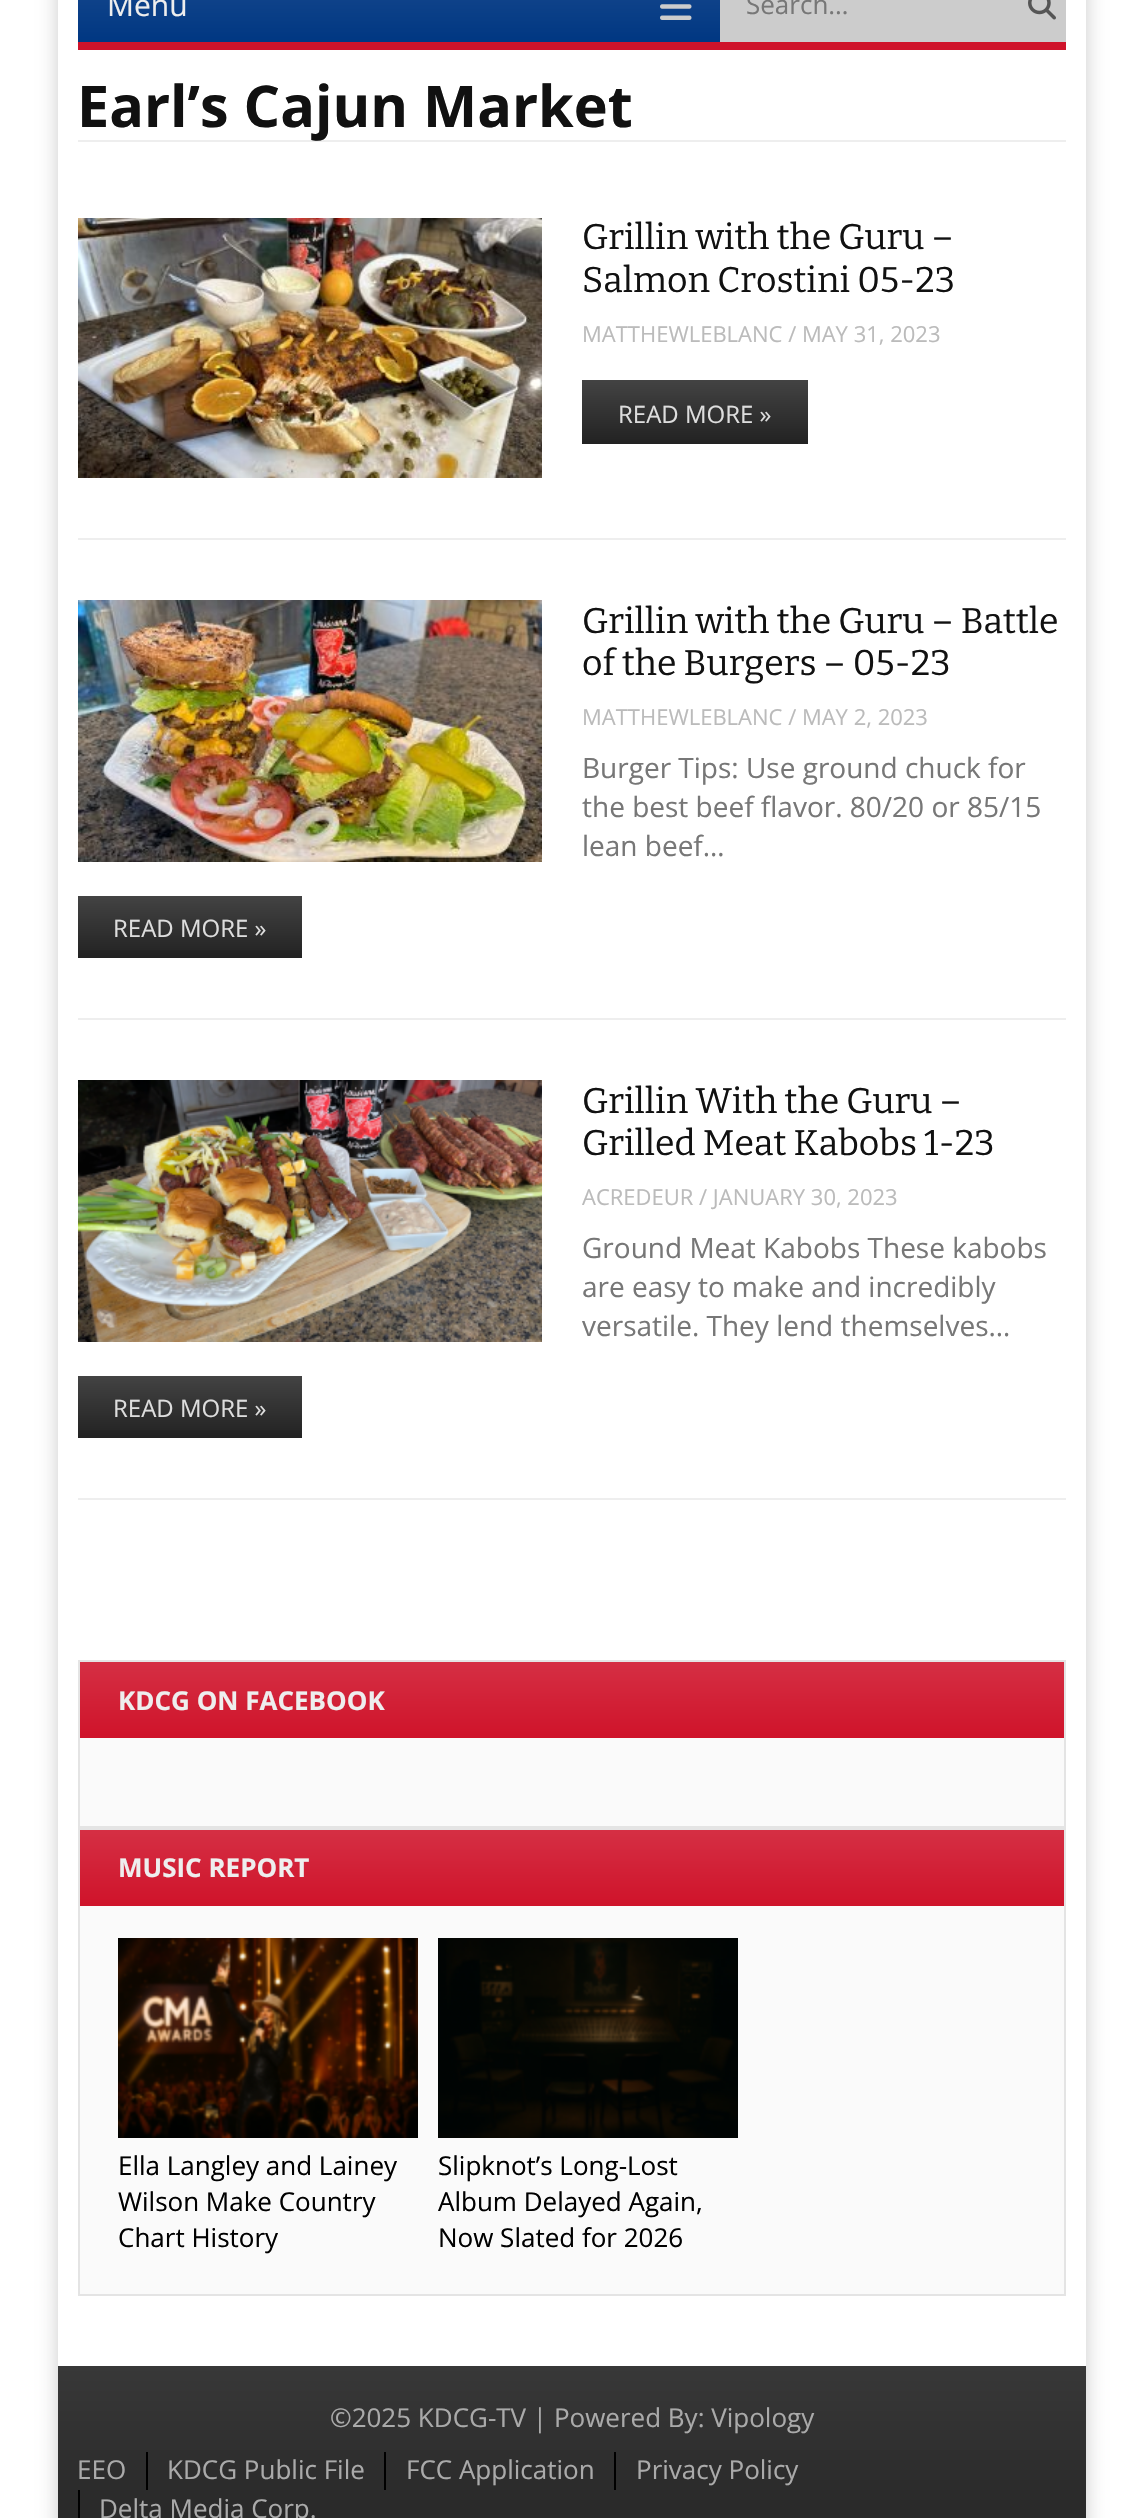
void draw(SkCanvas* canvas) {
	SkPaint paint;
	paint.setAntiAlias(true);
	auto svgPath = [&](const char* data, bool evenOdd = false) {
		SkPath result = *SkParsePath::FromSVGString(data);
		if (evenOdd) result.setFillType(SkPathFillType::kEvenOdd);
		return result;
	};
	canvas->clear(0xffffffff);
	canvas->save();
	canvas->clipPath(svgPath("M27 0H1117V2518H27ZM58-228H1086V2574C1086 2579.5 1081.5 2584 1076 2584H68C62.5 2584 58 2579.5 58 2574Z", true), true);
	paint.setColor(0x33000000);
	paint.setMaskFilter(SkMaskFilter::MakeBlur(kNormal_SkBlurStyle, 10));
	canvas->drawRoundRect(SkRect::MakeXYWH(58, -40, 1028, 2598), 10, 10, paint);
	paint.setMaskFilter(nullptr);
	canvas->restore();
	paint.setColor(0xffcf132a);
	canvas->drawRect(SkRect::MakeXYWH(78, 42, 988, 8), paint);
	{
		const SkColor colors[] = {0xff1a4b8f, 0xff003782};
		const float stops[] = {0, 1};
		const SkPoint ends[] = {{399, -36}, {399, 42}};
		paint.setShader(SkGradientShader::MakeLinear(ends, colors, stops, 2, SkTileMode::kClamp));
		paint.setAlpha(255);
	}
	canvas->drawRect(SkRect::MakeXYWH(78, 0, 642, 42), paint);
	SkFont f1(fontMgr->matchFamilyStyle("Open Sans", SkFontStyle::Normal()), 30);
	f1.setSubpixel(true);
	paint.setShader(nullptr);
	paint.setColor(0xffeeeeee);
	canvas->drawString("Menu", 107, 16, f1, paint);
	canvas->drawImageRect(SkImages::DeferredFromEncodedData(SkData::MakeFromFileName("img1.png")), SkRect::MakeXYWH(660, 4, 32, 16), SkSamplingOptions());
	paint.setColor(0xffcccccc);
	canvas->drawRect(SkRect::MakeXYWH(720, 0, 346, 42), paint);
	SkFont f2(fontMgr->matchFamilyStyle("Open Sans", SkFontStyle::Normal()), 26);
	f2.setSubpixel(true);
	paint.setColor(0xff777777);
	canvas->drawString("Search…", 746, 14, f2, paint);
	canvas->drawImageRect(SkImages::DeferredFromEncodedData(SkData::MakeFromFileName("img2.png")), SkRect::MakeXYWH(1028, 0, 28, 20), SkSamplingOptions());
	paint.setColor(0xffeeeeee);
	canvas->drawRect(SkRect::MakeXYWH(78, 140, 988, 2), paint);
	SkFont f3(fontMgr->matchFamilyStyle("Open Sans", SkFontStyle::Bold()), 57.5);
	f3.setSubpixel(true);
	paint.setColor(0xff111111);
	canvas->drawString("Earl’s Cajun Market", 77, 127, f3, paint);
	paint.setColor(0xffeeeeee);
	canvas->drawRect(SkRect::MakeXYWH(78, 538, 988, 2), paint);
	canvas->drawImageRect(SkImages::DeferredFromEncodedData(SkData::MakeFromFileName("img3.png")), SkRect::MakeXYWH(78, 218, 464, 260), SkSamplingOptions());
	SkFont f4(fontMgr->matchFamilyStyle("Bitter", SkFontStyle(100, SkFontStyle::kNormal_Width, SkFontStyle::kUpright_Slant)), 35.6);
	f4.setSubpixel(true);
	paint.setColor(0xff111111);
	canvas->drawString("Grillin with the Guru –", 582, 249, f4, paint);
	canvas->drawString("Salmon Crostini 05-23", 582, 292, f4, paint);
	SkFont f5(fontMgr->matchFamilyStyle("Open Sans", SkFontStyle::Normal()), 22);
	f5.setSubpixel(true);
	paint.setColor(0xffbbbbbb);
	canvas->drawString("MATTHEWLEBLANC / MAY 31, 2023", 582, 342, f5, paint);
	{
		const SkColor colors[] = {0xff434343, 0xff222222};
		const float stops[] = {0, 1};
		const SkPoint ends[] = {{695, 380}, {695, 444}};
		paint.setShader(SkGradientShader::MakeLinear(ends, colors, stops, 2, SkTileMode::kClamp));
		paint.setAlpha(255);
	}
	canvas->drawRect(SkRect::MakeXYWH(582, 380, 226, 64), paint);
	SkFont f6(fontMgr->matchFamilyStyle("Open Sans", SkFontStyle::Normal()), 24);
	f6.setSubpixel(true);
	paint.setShader(nullptr);
	paint.setColor(0xffdddddd);
	canvas->drawString("READ MORE »", 618, 423, f6, paint);
	paint.setColor(0xffeeeeee);
	canvas->drawRect(SkRect::MakeXYWH(78, 1018, 988, 2), paint);
	canvas->drawImageRect(SkImages::DeferredFromEncodedData(SkData::MakeFromFileName("img4.png")), SkRect::MakeXYWH(78, 600, 464, 262), SkSamplingOptions());
	paint.setColor(0xff111111);
	canvas->drawString("Grillin with the Guru – Battle", 582, 633, f4, paint);
	canvas->drawString("of the Burgers – 05-23", 582, 675, f4, paint);
	paint.setColor(0xffbbbbbb);
	canvas->drawString("MATTHEWLEBLANC / MAY 2, 2023", 582, 725, f5, paint);
	SkFont f7(fontMgr->matchFamilyStyle("Open Sans", SkFontStyle::Normal()), 28);
	f7.setSubpixel(true);
	paint.setColor(0xff777777);
	canvas->drawString("Burger Tips: Use ground chuck for", 582, 778, f7, paint);
	canvas->drawString("the best beef flavor. 80/20 or 85/15", 582, 817, f7, paint);
	canvas->drawString("lean beef…", 582, 856, f7, paint);
	{
		const SkColor colors[] = {0xff434343, 0xff222222};
		const float stops[] = {0, 1};
		const SkPoint ends[] = {{190, 896}, {190, 958}};
		paint.setShader(SkGradientShader::MakeLinear(ends, colors, stops, 2, SkTileMode::kClamp));
		paint.setAlpha(255);
	}
	canvas->drawRect(SkRect::MakeXYWH(78, 896, 224, 62), paint);
	paint.setShader(nullptr);
	paint.setColor(0xffdddddd);
	canvas->drawString("READ MORE »", 113, 937, f6, paint);
	paint.setColor(0xffeeeeee);
	canvas->drawRect(SkRect::MakeXYWH(78, 1498, 988, 2), paint);
	canvas->drawImageRect(SkImages::DeferredFromEncodedData(SkData::MakeFromFileName("img5.png")), SkRect::MakeXYWH(78, 1080, 464, 262), SkSamplingOptions());
	paint.setColor(0xff111111);
	canvas->drawString("Grillin With the Guru –", 582, 1113, f4, paint);
	canvas->drawString("Grilled Meat Kabobs 1-23", 582, 1155, f4, paint);
	paint.setColor(0xffbbbbbb);
	canvas->drawString("ACREDEUR / JANUARY 30, 2023", 582, 1205, f5, paint);
	paint.setColor(0xff777777);
	canvas->drawString("Ground Meat Kabobs These kabobs", 582, 1258, f7, paint);
	canvas->drawString("are easy to make and incredibly", 582, 1297, f7, paint);
	canvas->drawString("versatile. They lend themselves…", 582, 1336, f7, paint);
	{
		const SkColor colors[] = {0xff434343, 0xff222222};
		const float stops[] = {0, 1};
		const SkPoint ends[] = {{190, 1376}, {190, 1438}};
		paint.setShader(SkGradientShader::MakeLinear(ends, colors, stops, 2, SkTileMode::kClamp));
		paint.setAlpha(255);
	}
	canvas->drawRect(SkRect::MakeXYWH(78, 1376, 224, 62), paint);
	paint.setShader(nullptr);
	paint.setColor(0xffdddddd);
	canvas->drawString("READ MORE »", 113, 1417, f6, paint);
	paint.setColor(0xfffafafa);
	canvas->drawRect(SkRect::MakeXYWH(80, 1738, 984, 88), paint);
	paint.setStroke(true);
	paint.setStrokeWidth(2);
	paint.setColor(0xffe4e4e4);
	canvas->drawRect(SkRect::MakeXYWH(79, 1661, 986, 166), paint);
	paint.setStroke(false);
	{
		const SkColor colors[] = {0xffd52f44, 0xffcf132a};
		const float stops[] = {0, 1};
		const SkPoint ends[] = {{572, 1662}, {572, 1738}};
		paint.setShader(SkGradientShader::MakeLinear(ends, colors, stops, 2, SkTileMode::kClamp));
		paint.setAlpha(255);
	}
	canvas->drawRect(SkRect::MakeXYWH(80, 1662, 984, 76), paint);
	SkFont f8(fontMgr->matchFamilyStyle("Open Sans", SkFontStyle::Bold()), 26);
	f8.setSubpixel(true);
	paint.setShader(nullptr);
	paint.setColor(0xffeeeeee);
	canvas->drawString("KDCG ON FACEBOOK", 118, 1710, f8, paint);
	paint.setColor(0xfffafafa);
	canvas->drawRect(SkRect::MakeXYWH(80, 1906, 984, 388), paint);
	paint.setStroke(true);
	paint.setColor(0xffe4e4e4);
	canvas->drawRect(SkRect::MakeXYWH(79, 1829, 986, 466), paint);
	paint.setStroke(false);
	{
		const SkColor colors[] = {0xffd52f44, 0xffcf132a};
		const float stops[] = {0, 1};
		const SkPoint ends[] = {{572, 1830}, {572, 1906}};
		paint.setShader(SkGradientShader::MakeLinear(ends, colors, stops, 2, SkTileMode::kClamp));
		paint.setAlpha(255);
	}
	canvas->drawRect(SkRect::MakeXYWH(80, 1830, 984, 76), paint);
	paint.setShader(nullptr);
	paint.setColor(0xffeeeeee);
	canvas->drawString("MUSIC REPORT", 118, 1877, f8, paint);
	canvas->drawImageRect(SkImages::DeferredFromEncodedData(SkData::MakeFromFileName("img6.png")), SkRect::MakeXYWH(118, 1938, 300, 200), SkSamplingOptions());
	paint.setColor(0xff000000);
	canvas->drawString("Ella Langley and Lainey", 118, 2175, f2, paint);
	canvas->drawString("Wilson Make Country", 118, 2211, f2, paint);
	canvas->drawString("Chart History", 118, 2247, f2, paint);
	canvas->drawImageRect(SkImages::DeferredFromEncodedData(SkData::MakeFromFileName("img7.png")), SkRect::MakeXYWH(438, 1938, 300, 200), SkSamplingOptions());
	canvas->drawString("Slipknot’s Long-Lost", 438, 2175, f2, paint);
	canvas->drawString("Album Delayed Again,", 438, 2211, f2, paint);
	canvas->drawString("Now Slated for 2026", 438, 2247, f2, paint);
	{
		const SkColor colors[] = {0xff383838, 0xff222222};
		const float stops[] = {0, 1};
		const SkPoint ends[] = {{572, 2366}, {572, 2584}};
		paint.setShader(SkGradientShader::MakeLinear(ends, colors, stops, 2, SkTileMode::kClamp));
		paint.setAlpha(255);
	}
	canvas->drawRect(SkRect::MakeXYWH(58, 2366, 1028, 152), paint);
	paint.setShader(nullptr);
	paint.setColor(0xffaaaaaa);
	canvas->drawString("©2025 KDCG-TV | Powered By: Vipology", 330, 2427, f2, paint);
	canvas->drawString("EEO", 77, 2479, f2, paint);
	paint.setColor(0xff000000);
	canvas->drawRect(SkRect::MakeXYWH(146, 2452, 2, 38), paint);
	paint.setColor(0xffaaaaaa);
	canvas->drawString("KDCG Public File", 167, 2479, f2, paint);
	paint.setColor(0xff000000);
	canvas->drawRect(SkRect::MakeXYWH(384, 2452, 2, 38), paint);
	paint.setColor(0xffaaaaaa);
	canvas->drawString("FCC Application", 406, 2479, f2, paint);
	paint.setColor(0xff000000);
	canvas->drawRect(SkRect::MakeXYWH(614, 2452, 2, 38), paint);
	paint.setColor(0xffaaaaaa);
	canvas->drawString("Privacy Policy", 636, 2479, f2, paint);
	paint.setColor(0xff000000);
	canvas->drawRect(SkRect::MakeXYWH(78, 2490, 2, 28), paint);
	paint.setColor(0xffaaaaaa);
	canvas->drawString("Delta Media Corp.", 99, 2518, f2, paint);
}
